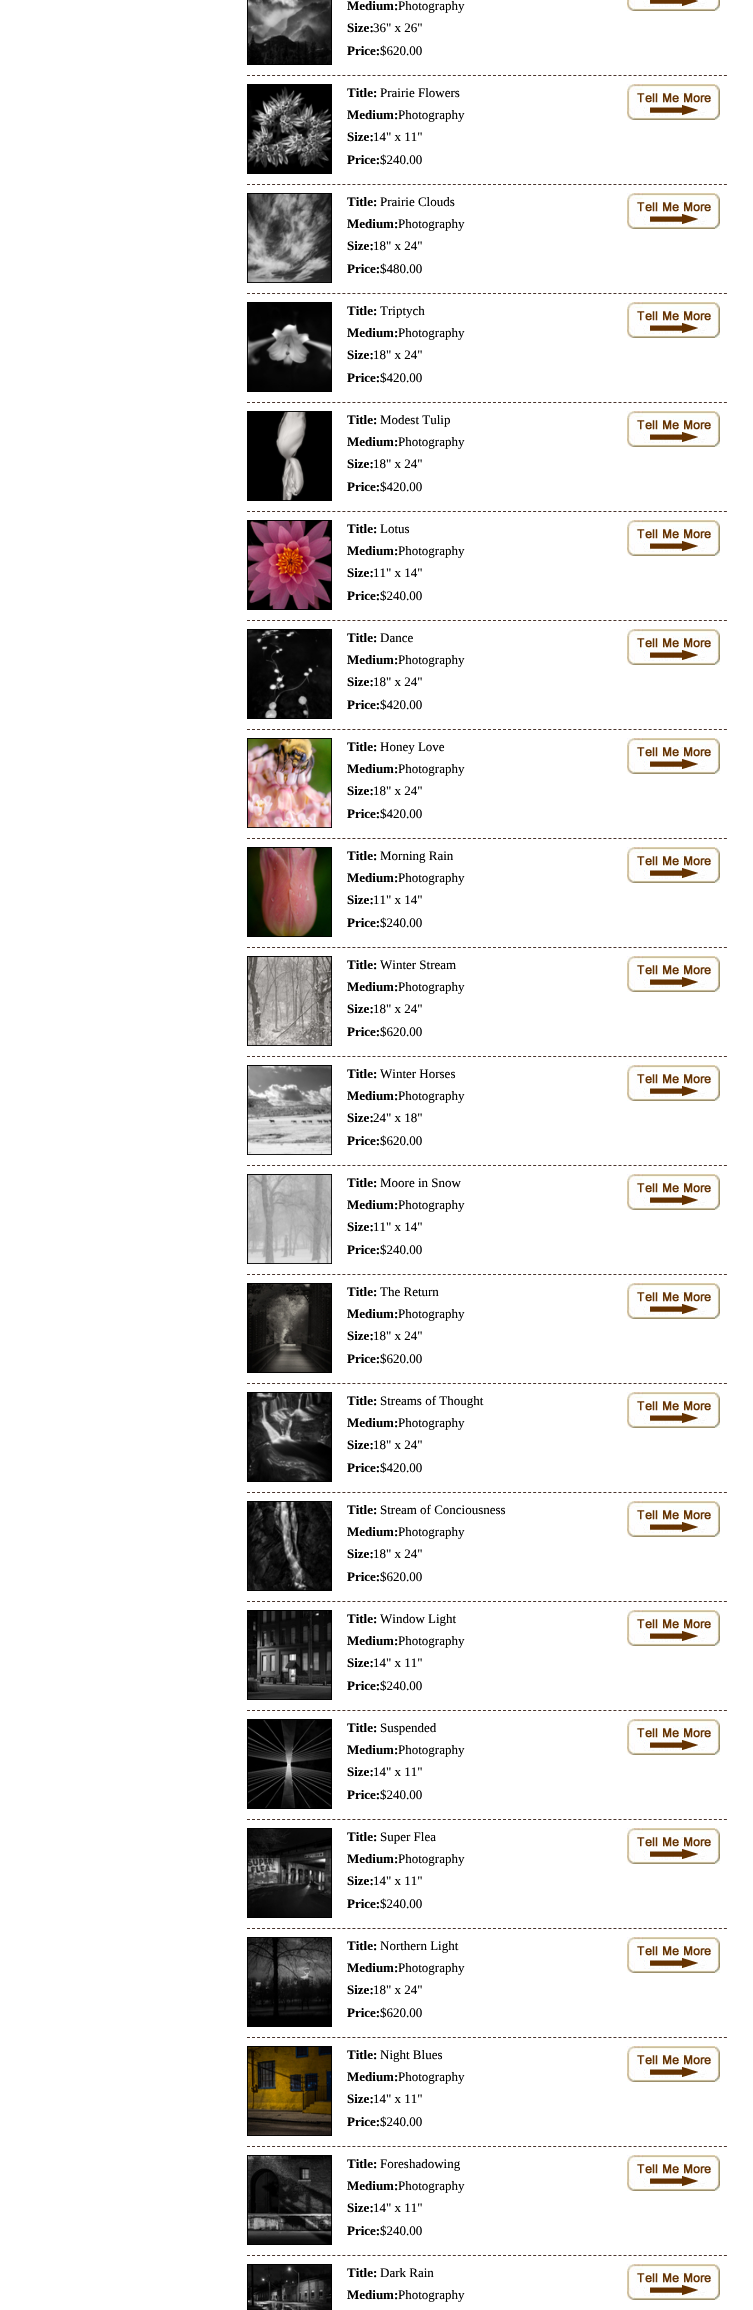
void draw(SkCanvas* canvas) {
	SkPaint paint;
	paint.setAntiAlias(true);
	auto svgPath = [&](const char* data, bool evenOdd = false) {
		SkPath result = *SkParsePath::FromSVGString(data);
		if (evenOdd) result.setFillType(SkPathFillType::kEvenOdd);
		return result;
	};
	canvas->clear(0xffffffff);
	paint.setStroke(true);
	paint.setStrokeWidth(1);
	paint.setColor(0xff4a342c);
	paint.setPathEffect(SkDashPathEffect::Make({{3, 2.02f}}, 0));
	canvas->drawPath(svgPath("M247 75.5H727"), paint);
	paint.setPathEffect(nullptr);
	canvas->drawImageRect(SkImages::DeferredFromEncodedData(SkData::MakeFromFileName("img1.png")), SkRect::MakeXYWH(247, 0, 85, 65), SkSamplingOptions());
	SkFont f1(fontMgr->matchFamilyStyle("Liberation Serif", SkFontStyle::Bold()), 13);
	f1.setSubpixel(true);
	paint.setStroke(false);
	paint.setColor(0xff000000);
	canvas->drawString("Medium:", 347, 10, f1, paint);
	SkFont f2(fontMgr->matchFamilyStyle("Liberation Serif", SkFontStyle::Normal()), 13);
	f2.setSubpixel(true);
	canvas->drawString("Photography", 398, 10, f2, paint);
	canvas->drawImageRect(SkImages::DeferredFromEncodedData(SkData::MakeFromFileName("img2.png")), SkRect::MakeXYWH(627, 0, 93, 11), SkSamplingOptions());
	canvas->drawString("Size:", 347, 32, f1, paint);
	canvas->drawString("36\" x 26\"", 373, 32, f2, paint);
	canvas->drawString("Price:", 347, 55, f1, paint);
	canvas->drawString("$620.00", 380, 55, f2, paint);
	paint.setStroke(true);
	paint.setColor(0xff4a342c);
	paint.setPathEffect(SkDashPathEffect::Make({{3, 2.02f}}, 0));
	canvas->drawPath(svgPath("M247 184.5H727"), paint);
	paint.setPathEffect(nullptr);
	canvas->drawImageRect(SkImages::DeferredFromEncodedData(SkData::MakeFromFileName("img3.png")), SkRect::MakeXYWH(247, 84, 85, 90), SkSamplingOptions());
	paint.setStroke(false);
	paint.setColor(0xff000000);
	canvas->drawString("Title:", 347, 97, f1, paint);
	canvas->drawString("Prairie Flowers", 380, 97, f2, paint);
	canvas->drawImageRect(SkImages::DeferredFromEncodedData(SkData::MakeFromFileName("img4.png")), SkRect::MakeXYWH(627, 84, 93, 36), SkSamplingOptions());
	canvas->drawString("Medium:", 347, 119, f1, paint);
	canvas->drawString("Photography", 398, 119, f2, paint);
	canvas->drawString("Size:", 347, 141, f1, paint);
	canvas->drawString("14\" x 11\"", 373, 141, f2, paint);
	canvas->drawString("Price:", 347, 164, f1, paint);
	canvas->drawString("$240.00", 380, 164, f2, paint);
	paint.setStroke(true);
	paint.setColor(0xff4a342c);
	paint.setPathEffect(SkDashPathEffect::Make({{3, 2.02f}}, 0));
	canvas->drawPath(svgPath("M247 293.5H727"), paint);
	paint.setPathEffect(nullptr);
	canvas->drawImageRect(SkImages::DeferredFromEncodedData(SkData::MakeFromFileName("img5.png")), SkRect::MakeXYWH(247, 193, 85, 90), SkSamplingOptions());
	paint.setStroke(false);
	paint.setColor(0xff000000);
	canvas->drawString("Title:", 347, 206, f1, paint);
	canvas->drawString("Prairie Clouds", 380, 206, f2, paint);
	canvas->drawImageRect(SkImages::DeferredFromEncodedData(SkData::MakeFromFileName("img4.png")), SkRect::MakeXYWH(627, 193, 93, 36), SkSamplingOptions());
	canvas->drawString("Medium:", 347, 228, f1, paint);
	canvas->drawString("Photography", 398, 228, f2, paint);
	canvas->drawString("Size:", 347, 250, f1, paint);
	canvas->drawString("18\" x 24\"", 373, 250, f2, paint);
	canvas->drawString("Price:", 347, 273, f1, paint);
	canvas->drawString("$480.00", 380, 273, f2, paint);
	paint.setStroke(true);
	paint.setColor(0xff4a342c);
	paint.setPathEffect(SkDashPathEffect::Make({{3, 2.02f}}, 0));
	canvas->drawPath(svgPath("M247 402.5H727"), paint);
	paint.setPathEffect(nullptr);
	canvas->drawImageRect(SkImages::DeferredFromEncodedData(SkData::MakeFromFileName("img6.png")), SkRect::MakeXYWH(247, 302, 85, 90), SkSamplingOptions());
	paint.setStroke(false);
	paint.setColor(0xff000000);
	canvas->drawString("Title:", 347, 315, f1, paint);
	canvas->drawString("Triptych", 380, 315, f2, paint);
	canvas->drawImageRect(SkImages::DeferredFromEncodedData(SkData::MakeFromFileName("img4.png")), SkRect::MakeXYWH(627, 302, 93, 36), SkSamplingOptions());
	canvas->drawString("Medium:", 347, 337, f1, paint);
	canvas->drawString("Photography", 398, 337, f2, paint);
	canvas->drawString("Size:", 347, 359, f1, paint);
	canvas->drawString("18\" x 24\"", 373, 359, f2, paint);
	canvas->drawString("Price:", 347, 382, f1, paint);
	canvas->drawString("$420.00", 380, 382, f2, paint);
	paint.setStroke(true);
	paint.setColor(0xff4a342c);
	paint.setPathEffect(SkDashPathEffect::Make({{3, 2.02f}}, 0));
	canvas->drawPath(svgPath("M247 511.5H727"), paint);
	paint.setPathEffect(nullptr);
	canvas->drawImageRect(SkImages::DeferredFromEncodedData(SkData::MakeFromFileName("img7.png")), SkRect::MakeXYWH(247, 411, 85, 90), SkSamplingOptions());
	paint.setStroke(false);
	paint.setColor(0xff000000);
	canvas->drawString("Title:", 347, 424, f1, paint);
	canvas->drawString("Modest Tulip", 380, 424, f2, paint);
	canvas->drawImageRect(SkImages::DeferredFromEncodedData(SkData::MakeFromFileName("img4.png")), SkRect::MakeXYWH(627, 411, 93, 36), SkSamplingOptions());
	canvas->drawString("Medium:", 347, 446, f1, paint);
	canvas->drawString("Photography", 398, 446, f2, paint);
	canvas->drawString("Size:", 347, 468, f1, paint);
	canvas->drawString("18\" x 24\"", 373, 468, f2, paint);
	canvas->drawString("Price:", 347, 491, f1, paint);
	canvas->drawString("$420.00", 380, 491, f2, paint);
	paint.setStroke(true);
	paint.setColor(0xff4a342c);
	paint.setPathEffect(SkDashPathEffect::Make({{3, 2.02f}}, 0));
	canvas->drawPath(svgPath("M247 620.5H727"), paint);
	paint.setPathEffect(nullptr);
	canvas->drawImageRect(SkImages::DeferredFromEncodedData(SkData::MakeFromFileName("img8.png")), SkRect::MakeXYWH(247, 520, 85, 90), SkSamplingOptions());
	paint.setStroke(false);
	paint.setColor(0xff000000);
	canvas->drawString("Title:", 347, 533, f1, paint);
	canvas->drawString("Lotus", 380, 533, f2, paint);
	canvas->drawImageRect(SkImages::DeferredFromEncodedData(SkData::MakeFromFileName("img4.png")), SkRect::MakeXYWH(627, 520, 93, 36), SkSamplingOptions());
	canvas->drawString("Medium:", 347, 555, f1, paint);
	canvas->drawString("Photography", 398, 555, f2, paint);
	canvas->drawString("Size:", 347, 577, f1, paint);
	canvas->drawString("11\" x 14\"", 373, 577, f2, paint);
	canvas->drawString("Price:", 347, 600, f1, paint);
	canvas->drawString("$240.00", 380, 600, f2, paint);
	paint.setStroke(true);
	paint.setColor(0xff4a342c);
	paint.setPathEffect(SkDashPathEffect::Make({{3, 2.02f}}, 0));
	canvas->drawPath(svgPath("M247 729.5H727"), paint);
	paint.setPathEffect(nullptr);
	canvas->drawImageRect(SkImages::DeferredFromEncodedData(SkData::MakeFromFileName("img9.png")), SkRect::MakeXYWH(247, 629, 85, 90), SkSamplingOptions());
	paint.setStroke(false);
	paint.setColor(0xff000000);
	canvas->drawString("Title:", 347, 642, f1, paint);
	canvas->drawString("Dance", 380, 642, f2, paint);
	canvas->drawImageRect(SkImages::DeferredFromEncodedData(SkData::MakeFromFileName("img4.png")), SkRect::MakeXYWH(627, 629, 93, 36), SkSamplingOptions());
	canvas->drawString("Medium:", 347, 664, f1, paint);
	canvas->drawString("Photography", 398, 664, f2, paint);
	canvas->drawString("Size:", 347, 686, f1, paint);
	canvas->drawString("18\" x 24\"", 373, 686, f2, paint);
	canvas->drawString("Price:", 347, 709, f1, paint);
	canvas->drawString("$420.00", 380, 709, f2, paint);
	paint.setStroke(true);
	paint.setColor(0xff4a342c);
	paint.setPathEffect(SkDashPathEffect::Make({{3, 2.02f}}, 0));
	canvas->drawPath(svgPath("M247 838.5H727"), paint);
	paint.setPathEffect(nullptr);
	canvas->drawImageRect(SkImages::DeferredFromEncodedData(SkData::MakeFromFileName("img10.png")), SkRect::MakeXYWH(247, 738, 85, 90), SkSamplingOptions());
	paint.setStroke(false);
	paint.setColor(0xff000000);
	canvas->drawString("Title:", 347, 751, f1, paint);
	canvas->drawString("Honey Love", 380, 751, f2, paint);
	canvas->drawImageRect(SkImages::DeferredFromEncodedData(SkData::MakeFromFileName("img4.png")), SkRect::MakeXYWH(627, 738, 93, 36), SkSamplingOptions());
	canvas->drawString("Medium:", 347, 773, f1, paint);
	canvas->drawString("Photography", 398, 773, f2, paint);
	canvas->drawString("Size:", 347, 795, f1, paint);
	canvas->drawString("18\" x 24\"", 373, 795, f2, paint);
	canvas->drawString("Price:", 347, 818, f1, paint);
	canvas->drawString("$420.00", 380, 818, f2, paint);
	paint.setStroke(true);
	paint.setColor(0xff4a342c);
	paint.setPathEffect(SkDashPathEffect::Make({{3, 2.02f}}, 0));
	canvas->drawPath(svgPath("M247 947.5H727"), paint);
	paint.setPathEffect(nullptr);
	canvas->drawImageRect(SkImages::DeferredFromEncodedData(SkData::MakeFromFileName("img11.png")), SkRect::MakeXYWH(247, 847, 85, 90), SkSamplingOptions());
	paint.setStroke(false);
	paint.setColor(0xff000000);
	canvas->drawString("Title:", 347, 860, f1, paint);
	canvas->drawString("Morning Rain", 380, 860, f2, paint);
	canvas->drawImageRect(SkImages::DeferredFromEncodedData(SkData::MakeFromFileName("img4.png")), SkRect::MakeXYWH(627, 847, 93, 36), SkSamplingOptions());
	canvas->drawString("Medium:", 347, 882, f1, paint);
	canvas->drawString("Photography", 398, 882, f2, paint);
	canvas->drawString("Size:", 347, 904, f1, paint);
	canvas->drawString("11\" x 14\"", 373, 904, f2, paint);
	canvas->drawString("Price:", 347, 927, f1, paint);
	canvas->drawString("$240.00", 380, 927, f2, paint);
	paint.setStroke(true);
	paint.setColor(0xff4a342c);
	paint.setPathEffect(SkDashPathEffect::Make({{3, 2.02f}}, 0));
	canvas->drawPath(svgPath("M247 1056.5H727"), paint);
	paint.setPathEffect(nullptr);
	canvas->drawImageRect(SkImages::DeferredFromEncodedData(SkData::MakeFromFileName("img12.png")), SkRect::MakeXYWH(247, 956, 85, 90), SkSamplingOptions());
	paint.setStroke(false);
	paint.setColor(0xff000000);
	canvas->drawString("Title:", 347, 969, f1, paint);
	canvas->drawString("Winter Stream", 380, 969, f2, paint);
	canvas->drawImageRect(SkImages::DeferredFromEncodedData(SkData::MakeFromFileName("img4.png")), SkRect::MakeXYWH(627, 956, 93, 36), SkSamplingOptions());
	canvas->drawString("Medium:", 347, 991, f1, paint);
	canvas->drawString("Photography", 398, 991, f2, paint);
	canvas->drawString("Size:", 347, 1013, f1, paint);
	canvas->drawString("18\" x 24\"", 373, 1013, f2, paint);
	canvas->drawString("Price:", 347, 1036, f1, paint);
	canvas->drawString("$620.00", 380, 1036, f2, paint);
	paint.setStroke(true);
	paint.setColor(0xff4a342c);
	paint.setPathEffect(SkDashPathEffect::Make({{3, 2.02f}}, 0));
	canvas->drawPath(svgPath("M247 1165.5H727"), paint);
	paint.setPathEffect(nullptr);
	canvas->drawImageRect(SkImages::DeferredFromEncodedData(SkData::MakeFromFileName("img13.png")), SkRect::MakeXYWH(247, 1065, 85, 90), SkSamplingOptions());
	paint.setStroke(false);
	paint.setColor(0xff000000);
	canvas->drawString("Title:", 347, 1078, f1, paint);
	canvas->drawString("Winter Horses", 380, 1078, f2, paint);
	canvas->drawImageRect(SkImages::DeferredFromEncodedData(SkData::MakeFromFileName("img4.png")), SkRect::MakeXYWH(627, 1065, 93, 36), SkSamplingOptions());
	canvas->drawString("Medium:", 347, 1100, f1, paint);
	canvas->drawString("Photography", 398, 1100, f2, paint);
	canvas->drawString("Size:", 347, 1122, f1, paint);
	canvas->drawString("24\" x 18\"", 373, 1122, f2, paint);
	canvas->drawString("Price:", 347, 1145, f1, paint);
	canvas->drawString("$620.00", 380, 1145, f2, paint);
	paint.setStroke(true);
	paint.setColor(0xff4a342c);
	paint.setPathEffect(SkDashPathEffect::Make({{3, 2.02f}}, 0));
	canvas->drawPath(svgPath("M247 1274.5H727"), paint);
	paint.setPathEffect(nullptr);
	canvas->drawImageRect(SkImages::DeferredFromEncodedData(SkData::MakeFromFileName("img14.png")), SkRect::MakeXYWH(247, 1174, 85, 90), SkSamplingOptions());
	paint.setStroke(false);
	paint.setColor(0xff000000);
	canvas->drawString("Title:", 347, 1187, f1, paint);
	canvas->drawString("Moore in Snow", 380, 1187, f2, paint);
	canvas->drawImageRect(SkImages::DeferredFromEncodedData(SkData::MakeFromFileName("img4.png")), SkRect::MakeXYWH(627, 1174, 93, 36), SkSamplingOptions());
	canvas->drawString("Medium:", 347, 1209, f1, paint);
	canvas->drawString("Photography", 398, 1209, f2, paint);
	canvas->drawString("Size:", 347, 1231, f1, paint);
	canvas->drawString("11\" x 14\"", 373, 1231, f2, paint);
	canvas->drawString("Price:", 347, 1254, f1, paint);
	canvas->drawString("$240.00", 380, 1254, f2, paint);
	paint.setStroke(true);
	paint.setColor(0xff4a342c);
	paint.setPathEffect(SkDashPathEffect::Make({{3, 2.02f}}, 0));
	canvas->drawPath(svgPath("M247 1383.5H727"), paint);
	paint.setPathEffect(nullptr);
	canvas->drawImageRect(SkImages::DeferredFromEncodedData(SkData::MakeFromFileName("img15.png")), SkRect::MakeXYWH(247, 1283, 85, 90), SkSamplingOptions());
	paint.setStroke(false);
	paint.setColor(0xff000000);
	canvas->drawString("Title:", 347, 1296, f1, paint);
	canvas->drawString("The Return", 380, 1296, f2, paint);
	canvas->drawImageRect(SkImages::DeferredFromEncodedData(SkData::MakeFromFileName("img4.png")), SkRect::MakeXYWH(627, 1283, 93, 36), SkSamplingOptions());
	canvas->drawString("Medium:", 347, 1318, f1, paint);
	canvas->drawString("Photography", 398, 1318, f2, paint);
	canvas->drawString("Size:", 347, 1340, f1, paint);
	canvas->drawString("18\" x 24\"", 373, 1340, f2, paint);
	canvas->drawString("Price:", 347, 1363, f1, paint);
	canvas->drawString("$620.00", 380, 1363, f2, paint);
	paint.setStroke(true);
	paint.setColor(0xff4a342c);
	paint.setPathEffect(SkDashPathEffect::Make({{3, 2.02f}}, 0));
	canvas->drawPath(svgPath("M247 1492.5H727"), paint);
	paint.setPathEffect(nullptr);
	canvas->drawImageRect(SkImages::DeferredFromEncodedData(SkData::MakeFromFileName("img16.png")), SkRect::MakeXYWH(247, 1392, 85, 90), SkSamplingOptions());
	paint.setStroke(false);
	paint.setColor(0xff000000);
	canvas->drawString("Title:", 347, 1405, f1, paint);
	canvas->drawString("Streams of Thought", 380, 1405, f2, paint);
	canvas->drawImageRect(SkImages::DeferredFromEncodedData(SkData::MakeFromFileName("img4.png")), SkRect::MakeXYWH(627, 1392, 93, 36), SkSamplingOptions());
	canvas->drawString("Medium:", 347, 1427, f1, paint);
	canvas->drawString("Photography", 398, 1427, f2, paint);
	canvas->drawString("Size:", 347, 1449, f1, paint);
	canvas->drawString("18\" x 24\"", 373, 1449, f2, paint);
	canvas->drawString("Price:", 347, 1472, f1, paint);
	canvas->drawString("$420.00", 380, 1472, f2, paint);
	paint.setStroke(true);
	paint.setColor(0xff4a342c);
	paint.setPathEffect(SkDashPathEffect::Make({{3, 2.02f}}, 0));
	canvas->drawPath(svgPath("M247 1601.5H727"), paint);
	paint.setPathEffect(nullptr);
	canvas->drawImageRect(SkImages::DeferredFromEncodedData(SkData::MakeFromFileName("img17.png")), SkRect::MakeXYWH(247, 1501, 85, 90), SkSamplingOptions());
	paint.setStroke(false);
	paint.setColor(0xff000000);
	canvas->drawString("Title:", 347, 1514, f1, paint);
	canvas->drawString("Stream of Conciousness", 380, 1514, f2, paint);
	canvas->drawImageRect(SkImages::DeferredFromEncodedData(SkData::MakeFromFileName("img4.png")), SkRect::MakeXYWH(627, 1501, 93, 36), SkSamplingOptions());
	canvas->drawString("Medium:", 347, 1536, f1, paint);
	canvas->drawString("Photography", 398, 1536, f2, paint);
	canvas->drawString("Size:", 347, 1558, f1, paint);
	canvas->drawString("18\" x 24\"", 373, 1558, f2, paint);
	canvas->drawString("Price:", 347, 1581, f1, paint);
	canvas->drawString("$620.00", 380, 1581, f2, paint);
	paint.setStroke(true);
	paint.setColor(0xff4a342c);
	paint.setPathEffect(SkDashPathEffect::Make({{3, 2.02f}}, 0));
	canvas->drawPath(svgPath("M247 1710.5H727"), paint);
	paint.setPathEffect(nullptr);
	canvas->drawImageRect(SkImages::DeferredFromEncodedData(SkData::MakeFromFileName("img18.png")), SkRect::MakeXYWH(247, 1610, 85, 90), SkSamplingOptions());
	paint.setStroke(false);
	paint.setColor(0xff000000);
	canvas->drawString("Title:", 347, 1623, f1, paint);
	canvas->drawString("Window Light", 380, 1623, f2, paint);
	canvas->drawImageRect(SkImages::DeferredFromEncodedData(SkData::MakeFromFileName("img4.png")), SkRect::MakeXYWH(627, 1610, 93, 36), SkSamplingOptions());
	canvas->drawString("Medium:", 347, 1645, f1, paint);
	canvas->drawString("Photography", 398, 1645, f2, paint);
	canvas->drawString("Size:", 347, 1667, f1, paint);
	canvas->drawString("14\" x 11\"", 373, 1667, f2, paint);
	canvas->drawString("Price:", 347, 1690, f1, paint);
	canvas->drawString("$240.00", 380, 1690, f2, paint);
	paint.setStroke(true);
	paint.setColor(0xff4a342c);
	paint.setPathEffect(SkDashPathEffect::Make({{3, 2.02f}}, 0));
	canvas->drawPath(svgPath("M247 1819.5H727"), paint);
	paint.setPathEffect(nullptr);
	canvas->drawImageRect(SkImages::DeferredFromEncodedData(SkData::MakeFromFileName("img19.png")), SkRect::MakeXYWH(247, 1719, 85, 90), SkSamplingOptions());
	paint.setStroke(false);
	paint.setColor(0xff000000);
	canvas->drawString("Title:", 347, 1732, f1, paint);
	canvas->drawString("Suspended", 380, 1732, f2, paint);
	canvas->drawImageRect(SkImages::DeferredFromEncodedData(SkData::MakeFromFileName("img4.png")), SkRect::MakeXYWH(627, 1719, 93, 36), SkSamplingOptions());
	canvas->drawString("Medium:", 347, 1754, f1, paint);
	canvas->drawString("Photography", 398, 1754, f2, paint);
	canvas->drawString("Size:", 347, 1776, f1, paint);
	canvas->drawString("14\" x 11\"", 373, 1776, f2, paint);
	canvas->drawString("Price:", 347, 1799, f1, paint);
	canvas->drawString("$240.00", 380, 1799, f2, paint);
	paint.setStroke(true);
	paint.setColor(0xff4a342c);
	paint.setPathEffect(SkDashPathEffect::Make({{3, 2.02f}}, 0));
	canvas->drawPath(svgPath("M247 1928.5H727"), paint);
	paint.setPathEffect(nullptr);
	canvas->drawImageRect(SkImages::DeferredFromEncodedData(SkData::MakeFromFileName("img20.png")), SkRect::MakeXYWH(247, 1828, 85, 90), SkSamplingOptions());
	paint.setStroke(false);
	paint.setColor(0xff000000);
	canvas->drawString("Title:", 347, 1841, f1, paint);
	canvas->drawString("Super Flea", 380, 1841, f2, paint);
	canvas->drawImageRect(SkImages::DeferredFromEncodedData(SkData::MakeFromFileName("img4.png")), SkRect::MakeXYWH(627, 1828, 93, 36), SkSamplingOptions());
	canvas->drawString("Medium:", 347, 1863, f1, paint);
	canvas->drawString("Photography", 398, 1863, f2, paint);
	canvas->drawString("Size:", 347, 1885, f1, paint);
	canvas->drawString("14\" x 11\"", 373, 1885, f2, paint);
	canvas->drawString("Price:", 347, 1908, f1, paint);
	canvas->drawString("$240.00", 380, 1908, f2, paint);
	paint.setStroke(true);
	paint.setColor(0xff4a342c);
	paint.setPathEffect(SkDashPathEffect::Make({{3, 2.02f}}, 0));
	canvas->drawPath(svgPath("M247 2037.5H727"), paint);
	paint.setPathEffect(nullptr);
	canvas->drawImageRect(SkImages::DeferredFromEncodedData(SkData::MakeFromFileName("img21.png")), SkRect::MakeXYWH(247, 1937, 85, 90), SkSamplingOptions());
	paint.setStroke(false);
	paint.setColor(0xff000000);
	canvas->drawString("Title:", 347, 1950, f1, paint);
	canvas->drawString("Northern Light", 380, 1950, f2, paint);
	canvas->drawImageRect(SkImages::DeferredFromEncodedData(SkData::MakeFromFileName("img4.png")), SkRect::MakeXYWH(627, 1937, 93, 36), SkSamplingOptions());
	canvas->drawString("Medium:", 347, 1972, f1, paint);
	canvas->drawString("Photography", 398, 1972, f2, paint);
	canvas->drawString("Size:", 347, 1994, f1, paint);
	canvas->drawString("18\" x 24\"", 373, 1994, f2, paint);
	canvas->drawString("Price:", 347, 2017, f1, paint);
	canvas->drawString("$620.00", 380, 2017, f2, paint);
	paint.setStroke(true);
	paint.setColor(0xff4a342c);
	paint.setPathEffect(SkDashPathEffect::Make({{3, 2.02f}}, 0));
	canvas->drawPath(svgPath("M247 2146.5H727"), paint);
	paint.setPathEffect(nullptr);
	canvas->drawImageRect(SkImages::DeferredFromEncodedData(SkData::MakeFromFileName("img22.png")), SkRect::MakeXYWH(247, 2046, 85, 90), SkSamplingOptions());
	paint.setStroke(false);
	paint.setColor(0xff000000);
	canvas->drawString("Title:", 347, 2059, f1, paint);
	canvas->drawString("Night Blues", 380, 2059, f2, paint);
	canvas->drawImageRect(SkImages::DeferredFromEncodedData(SkData::MakeFromFileName("img4.png")), SkRect::MakeXYWH(627, 2046, 93, 36), SkSamplingOptions());
	canvas->drawString("Medium:", 347, 2081, f1, paint);
	canvas->drawString("Photography", 398, 2081, f2, paint);
	canvas->drawString("Size:", 347, 2103, f1, paint);
	canvas->drawString("14\" x 11\"", 373, 2103, f2, paint);
	canvas->drawString("Price:", 347, 2126, f1, paint);
	canvas->drawString("$240.00", 380, 2126, f2, paint);
	paint.setStroke(true);
	paint.setColor(0xff4a342c);
	paint.setPathEffect(SkDashPathEffect::Make({{3, 2.02f}}, 0));
	canvas->drawPath(svgPath("M247 2255.5H727"), paint);
	paint.setPathEffect(nullptr);
	canvas->drawImageRect(SkImages::DeferredFromEncodedData(SkData::MakeFromFileName("img23.png")), SkRect::MakeXYWH(247, 2155, 85, 90), SkSamplingOptions());
	paint.setStroke(false);
	paint.setColor(0xff000000);
	canvas->drawString("Title:", 347, 2168, f1, paint);
	canvas->drawString("Foreshadowing", 380, 2168, f2, paint);
	canvas->drawImageRect(SkImages::DeferredFromEncodedData(SkData::MakeFromFileName("img4.png")), SkRect::MakeXYWH(627, 2155, 93, 36), SkSamplingOptions());
	canvas->drawString("Medium:", 347, 2190, f1, paint);
	canvas->drawString("Photography", 398, 2190, f2, paint);
	canvas->drawString("Size:", 347, 2212, f1, paint);
	canvas->drawString("14\" x 11\"", 373, 2212, f2, paint);
	canvas->drawString("Price:", 347, 2235, f1, paint);
	canvas->drawString("$240.00", 380, 2235, f2, paint);
	canvas->drawImageRect(SkImages::DeferredFromEncodedData(SkData::MakeFromFileName("img24.png")), SkRect::MakeXYWH(247, 2264, 85, 46), SkSamplingOptions());
	canvas->drawString("Title:", 347, 2277, f1, paint);
	canvas->drawString("Dark Rain", 380, 2277, f2, paint);
	canvas->drawImageRect(SkImages::DeferredFromEncodedData(SkData::MakeFromFileName("img4.png")), SkRect::MakeXYWH(627, 2264, 93, 36), SkSamplingOptions());
	canvas->drawString("Medium:", 347, 2299, f1, paint);
	canvas->drawString("Photography", 398, 2299, f2, paint);
}
